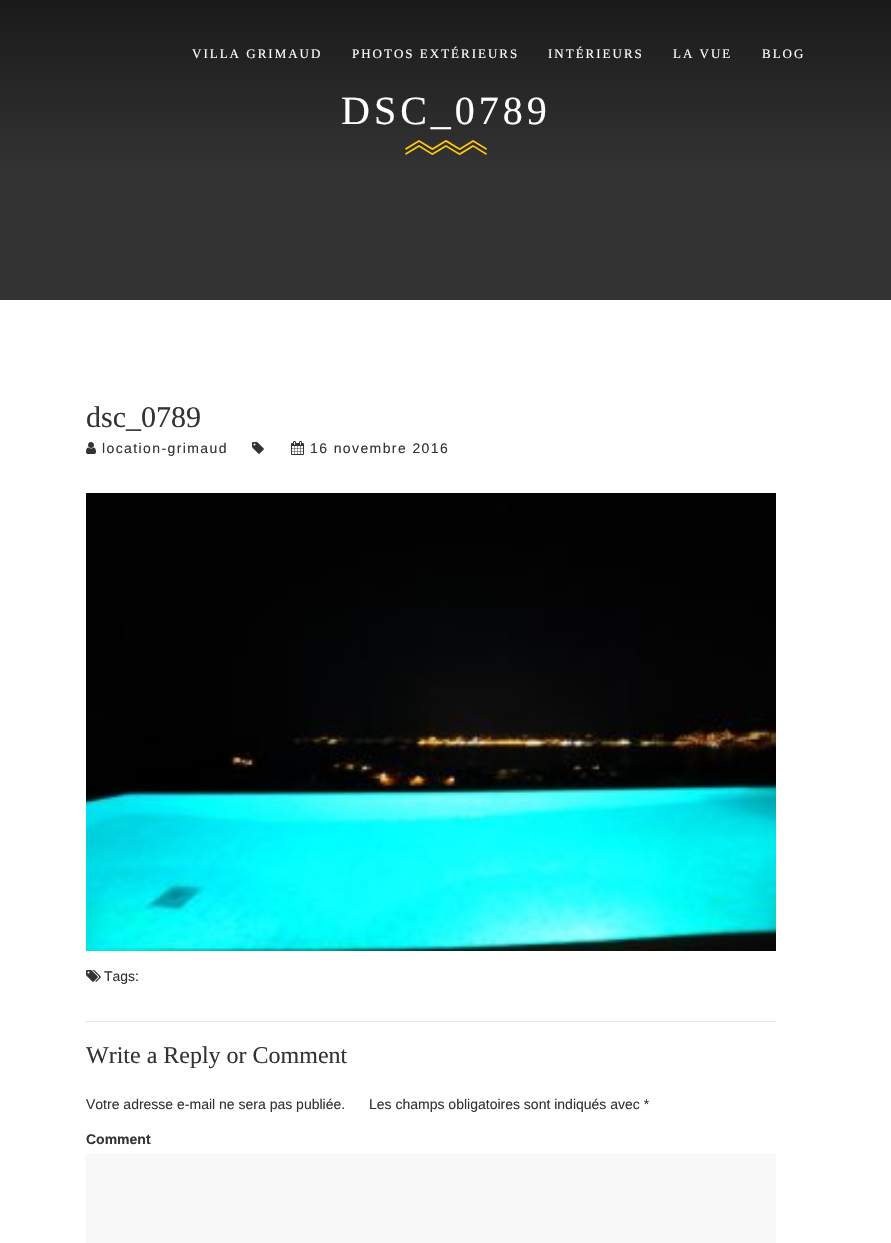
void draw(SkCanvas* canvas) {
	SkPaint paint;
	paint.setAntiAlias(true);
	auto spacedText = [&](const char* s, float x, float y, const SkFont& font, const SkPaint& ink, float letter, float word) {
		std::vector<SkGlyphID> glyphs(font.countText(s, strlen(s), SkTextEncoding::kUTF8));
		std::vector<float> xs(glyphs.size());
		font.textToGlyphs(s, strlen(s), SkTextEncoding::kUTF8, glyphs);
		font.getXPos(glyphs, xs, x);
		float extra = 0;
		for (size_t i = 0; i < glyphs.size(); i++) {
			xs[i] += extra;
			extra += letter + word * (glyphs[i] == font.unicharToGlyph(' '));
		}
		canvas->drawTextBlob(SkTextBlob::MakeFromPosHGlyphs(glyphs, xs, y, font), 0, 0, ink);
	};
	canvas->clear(0xffffffff);
	{
		const SkColor colors[] = {0xff1a1a1a, 0xff333333};
		const float stops[] = {0, 1};
		const SkPoint ends[] = {{446, 0}, {446, 173}};
		paint.setShader(SkGradientShader::MakeLinear(ends, colors, stops, 2, SkTileMode::kClamp));
		paint.setAlpha(255);
	}
	canvas->drawRect(SkRect::MakeXYWH(0, 0, 891, 173), paint);
	SkFont f1(fontMgr->matchFamilyStyle("Liberation Serif", SkFontStyle::Normal()), 13);
	f1.setSubpixel(true);
	paint.setShader(nullptr);
	paint.setColor(0xffffffff);
	spacedText("VILLA GRIMAUD", 192, 58, f1, paint, 2, 0);
	spacedText("PHOTOS EXTÉRIEURS", 352, 58, f1, paint, 2, 0);
	spacedText("INTÉRIEURS", 548, 58, f1, paint, 2, 0);
	spacedText("LA VUE", 673, 58, f1, paint, 2, 0);
	spacedText("BLOG", 762, 58, f1, paint, 2, 0);
	paint.setColor(0xff333333);
	canvas->drawRect(SkRect::MakeXYWH(0, 173, 891, 127), paint);
	SkFont f2(fontMgr->matchFamilyStyle("Liberation Serif", SkFontStyle::Normal()), 40);
	f2.setSubpixel(true);
	paint.setColor(0xffffffff);
	spacedText("DSC_0789", 341, 124, f2, paint, 4, 0);
	canvas->drawImageRect(SkImages::DeferredFromEncodedData(SkData::MakeFromFileName("img1.png")), SkRect::MakeXYWH(405, 140, 82, 15), SkSamplingOptions());
	SkFont f3(fontMgr->matchFamilyStyle("Liberation Serif", SkFontStyle::Normal()), 30);
	f3.setSubpixel(true);
	paint.setColor(0xff333333);
	canvas->drawString("dsc_0789", 86, 427, f3, paint);
	canvas->drawImageRect(SkImages::DeferredFromEncodedData(SkData::MakeFromFileName("img2.png")), SkRect::MakeXYWH(86, 442, 10, 12), SkSamplingOptions());
	SkFont f4(fontMgr->matchFamilyStyle("Liberation Sans", SkFontStyle::Normal()), 14);
	f4.setSubpixel(true);
	spacedText("location-grimaud", 102, 453, f4, paint, 1.4, 0);
	canvas->drawImageRect(SkImages::DeferredFromEncodedData(SkData::MakeFromFileName("img3.png")), SkRect::MakeXYWH(252, 442, 12, 12), SkSamplingOptions());
	canvas->drawImageRect(SkImages::DeferredFromEncodedData(SkData::MakeFromFileName("img4.png")), SkRect::MakeXYWH(291, 441, 13, 14), SkSamplingOptions());
	spacedText("16 novembre 2016", 310, 453, f4, paint, 1.4, 0);
	canvas->drawImageRect(SkImages::DeferredFromEncodedData(SkData::MakeFromFileName("img5.png")), SkRect::MakeXYWH(86, 493, 690, 458), SkSamplingOptions());
	canvas->drawImageRect(SkImages::DeferredFromEncodedData(SkData::MakeFromFileName("img6.png")), SkRect::MakeXYWH(86, 970, 15, 12), SkSamplingOptions());
	canvas->drawString("Tags:", 104, 981, f4, paint);
	paint.setColor(0xffe5e5e5);
	canvas->drawRect(SkRect::MakeXYWH(86, 1021, 690, 1), paint);
	SkFont f5(fontMgr->matchFamilyStyle("Liberation Serif", SkFontStyle::Normal()), 24);
	f5.setSubpixel(true);
	paint.setColor(0xff333333);
	canvas->drawString("Write a Reply or Comment", 86, 1063, f5, paint);
	canvas->drawString("Votre adresse e-mail ne sera pas publiée.", 86, 1109, f4, paint);
	canvas->drawString("Les champs obligatoires sont indiqués avec *", 369, 1109, f4, paint);
	SkFont f6(fontMgr->matchFamilyStyle("Liberation Sans", SkFontStyle::Bold()), 14);
	f6.setSubpixel(true);
	canvas->drawString("Comment", 86, 1144, f6, paint);
	paint.setColor(0xfff8f8f8);
	canvas->drawRect(SkRect::MakeXYWH(86, 1154, 690, 89), paint);
}
